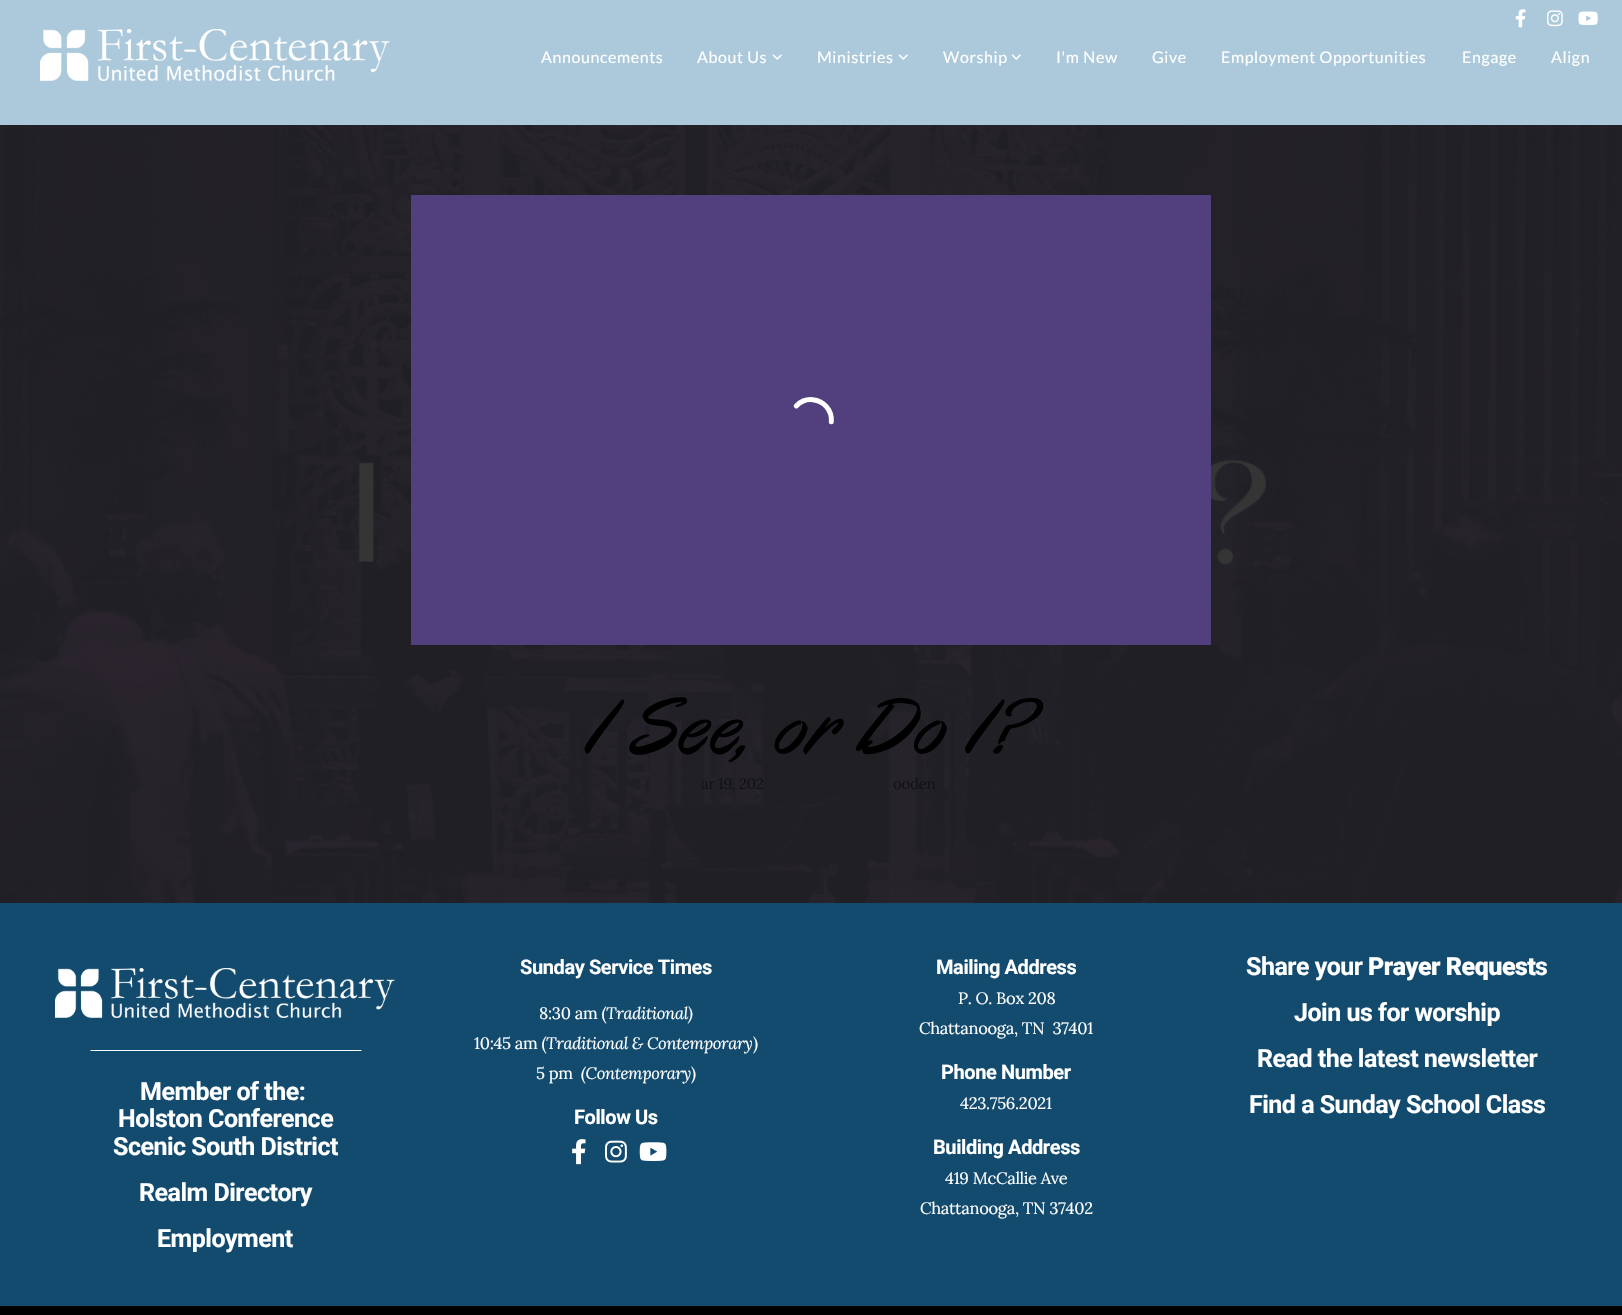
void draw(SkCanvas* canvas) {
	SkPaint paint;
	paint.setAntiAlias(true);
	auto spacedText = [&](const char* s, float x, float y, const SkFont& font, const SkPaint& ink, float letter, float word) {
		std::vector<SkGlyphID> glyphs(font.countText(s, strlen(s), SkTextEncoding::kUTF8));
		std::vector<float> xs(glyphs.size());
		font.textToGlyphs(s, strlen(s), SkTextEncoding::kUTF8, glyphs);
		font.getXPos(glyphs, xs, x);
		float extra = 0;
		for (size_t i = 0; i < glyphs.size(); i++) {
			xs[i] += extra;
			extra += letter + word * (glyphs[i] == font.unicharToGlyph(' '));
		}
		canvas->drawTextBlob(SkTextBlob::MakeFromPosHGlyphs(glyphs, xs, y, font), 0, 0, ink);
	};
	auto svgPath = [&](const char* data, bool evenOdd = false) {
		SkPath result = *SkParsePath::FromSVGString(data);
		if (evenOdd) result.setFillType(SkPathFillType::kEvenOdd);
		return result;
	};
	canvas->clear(0xffacc9dc);
	canvas->drawImageRect(SkImages::DeferredFromEncodedData(SkData::MakeFromFileName("img1.png")), SkRect::MakeXYWH(1515, 9, 11, 19), SkSamplingOptions());
	canvas->drawImageRect(SkImages::DeferredFromEncodedData(SkData::MakeFromFileName("img2.png")), SkRect::MakeXYWH(1547, 10, 16, 17), SkSamplingOptions());
	canvas->drawImageRect(SkImages::DeferredFromEncodedData(SkData::MakeFromFileName("img3.png")), SkRect::MakeXYWH(1578, 11, 20, 14), SkSamplingOptions());
	canvas->drawImageRect(SkImages::DeferredFromEncodedData(SkData::MakeFromFileName("img4.png")), SkRect::MakeXYWH(40, 29, 350, 52), SkSamplingOptions());
	SkFont f1(fontMgr->matchFamilyStyle("Lato", SkFontStyle::Normal()), 16);
	f1.setSubpixel(true);
	paint.setColor(0xffffffff);
	spacedText("Announcements", 541, 63, f1, paint, 0.6, 0);
	spacedText("About Us", 697, 63, f1, paint, 0.6, 0);
	canvas->drawImageRect(SkImages::DeferredFromEncodedData(SkData::MakeFromFileName("img5.png")), SkRect::MakeXYWH(772, 54, 10, 6), SkSamplingOptions());
	spacedText("Ministries", 817, 63, f1, paint, 0.6, 0);
	canvas->drawImageRect(SkImages::DeferredFromEncodedData(SkData::MakeFromFileName("img5.png")), SkRect::MakeXYWH(898, 54, 10, 6), SkSamplingOptions());
	spacedText("Worship", 943, 63, f1, paint, 0.6, 0);
	canvas->drawImageRect(SkImages::DeferredFromEncodedData(SkData::MakeFromFileName("img5.png")), SkRect::MakeXYWH(1011, 54, 10, 6), SkSamplingOptions());
	spacedText("I'm New", 1056, 63, f1, paint, 0.6, 0);
	spacedText("Give", 1152, 63, f1, paint, 0.6, 0);
	spacedText("Employment Opportunities", 1221, 63, f1, paint, 0.6, 0);
	spacedText("Engage", 1462, 63, f1, paint, 0.6, 0);
	spacedText("Align", 1551, 63, f1, paint, 0.6, 0);
	canvas->drawImageRect(SkImages::DeferredFromEncodedData(SkData::MakeFromFileName("img6.png")), SkRect::MakeXYWH(0, 125, 1622, 778), SkSamplingOptions());
	canvas->drawImageRect(SkImages::DeferredFromEncodedData(SkData::MakeFromFileName("img7.png")), SkRect::MakeXYWH(411, 195, 800, 450), SkSamplingOptions());
	SkFont f2(fontMgr->matchFamilyStyle("Oregano", SkFontStyle::Italic()), 80);
	f2.setSubpixel(true);
	paint.setColor(0xff000000);
	canvas->drawString("I See, or Do I?", 590, 753, f2, paint);
	SkFont f3(fontMgr->matchFamilyStyle("Lora", SkFontStyle::Normal()), 15);
	f3.setSubpixel(true);
	paint.setColor(0xff111014);
	spacedText("ar 19, 202", 701, 789, f3, paint, -0.3, 0);
	spacedText("ooden", 893, 789, f3, paint, -0.3, 0);
	paint.setColor(0xff134b6e);
	canvas->drawRect(SkRect::MakeXYWH(0, 903, 1622, 403), paint);
	canvas->drawImageRect(SkImages::DeferredFromEncodedData(SkData::MakeFromFileName("img8.png")), SkRect::MakeXYWH(55, 968, 340, 50), SkSamplingOptions());
	paint.setColor(0xffffffff);
	canvas->drawPath(svgPath("M362 1051H90L91 1050H361Z"), paint);
	SkFont f4(fontMgr->matchFamilyStyle("Roboto", SkFontStyle::Bold()), 25);
	f4.setSubpixel(true);
	spacedText("Member of the:", 140, 1100, f4, paint, -0.5, 0);
	spacedText("Holston Conference", 118, 1127, f4, paint, -0.5, 0);
	spacedText("Scenic South District", 113, 1155, f4, paint, -0.5, 0);
	spacedText("Realm Directory", 139, 1201, f4, paint, -0.5, 0);
	spacedText("Employment", 157, 1247, f4, paint, -0.5, 0);
	SkFont f5(fontMgr->matchFamilyStyle("Roboto", SkFontStyle::Bold()), 20);
	f5.setSubpixel(true);
	spacedText("Sunday Service Times", 520, 974, f5, paint, -0.4, 0);
	SkFont f6(fontMgr->matchFamilyStyle("Lora", SkFontStyle::Normal()), 16.5);
	f6.setSubpixel(true);
	spacedText("8:30 am (", 539, 1019, f6, paint, -0.3, 0);
	SkFont f7(fontMgr->matchFamilyStyle("Lora", SkFontStyle::Italic()), 16.5);
	f7.setSubpixel(true);
	spacedText("Traditional)", 606, 1019, f7, paint, -0.3, 0);
	spacedText("10:45 am (", 474, 1049, f6, paint, -0.3, 0);
	spacedText("Traditional & Contemporary", 546, 1049, f7, paint, -0.3, 0);
	spacedText(")", 753, 1049, f6, paint, -0.3, 0);
	spacedText("5 pm", 536, 1079, f6, paint, -0.3, 0);
	spacedText("(Contemporary", 581, 1079, f7, paint, -0.3, 0);
	spacedText(")", 691, 1079, f6, paint, -0.3, 0);
	spacedText("Follow Us", 574, 1124, f5, paint, -0.4, 0);
	canvas->drawImageRect(SkImages::DeferredFromEncodedData(SkData::MakeFromFileName("img9.png")), SkRect::MakeXYWH(572, 1139, 14, 26), SkSamplingOptions());
	canvas->drawImageRect(SkImages::DeferredFromEncodedData(SkData::MakeFromFileName("img10.png")), SkRect::MakeXYWH(605, 1140, 22, 23), SkSamplingOptions());
	canvas->drawImageRect(SkImages::DeferredFromEncodedData(SkData::MakeFromFileName("img11.png")), SkRect::MakeXYWH(639, 1142, 28, 19), SkSamplingOptions());
	spacedText("Mailing Address", 936, 974, f5, paint, -0.4, 0);
	spacedText("P. O. Box 208", 958, 1004, f6, paint, -0.3, 0);
	spacedText("Chattanooga, TN  37401", 919, 1034, f6, paint, -0.3, 0);
	spacedText("Phone Number", 941, 1079, f5, paint, -0.4, 0);
	spacedText("423.756.2021", 960, 1109, f6, paint, -0.3, 0);
	spacedText("Building Address", 933, 1154, f5, paint, -0.4, 0);
	spacedText("419 McCallie Ave", 945, 1184, f6, paint, -0.3, 0);
	spacedText("Chattanooga, TN 37402", 920, 1214, f6, paint, -0.3, 0);
	spacedText("Share your", 1246, 975, f4, paint, -0.5, 0);
	SkFont f8(fontMgr->matchFamilyStyle("Roboto", SkFontStyle(900, SkFontStyle::kNormal_Width, SkFontStyle::kUpright_Slant)), 25);
	f8.setSubpixel(true);
	spacedText("Prayer Request", 1368, 975, f8, paint, -0.5, 0);
	spacedText("s", 1535, 975, f4, paint, -0.5, 0);
	spacedText("Join us for worship", 1294, 1021, f4, paint, -0.5, 0);
	spacedText("Read the latest newsletter", 1257, 1067, f4, paint, -0.5, 0);
	spacedText("Find a Sunday School Class", 1249, 1113, f4, paint, -0.5, 0);
	paint.setColor(0xff000000);
	canvas->drawRect(SkRect::MakeXYWH(0, 1306, 1622, 9), paint);
}
